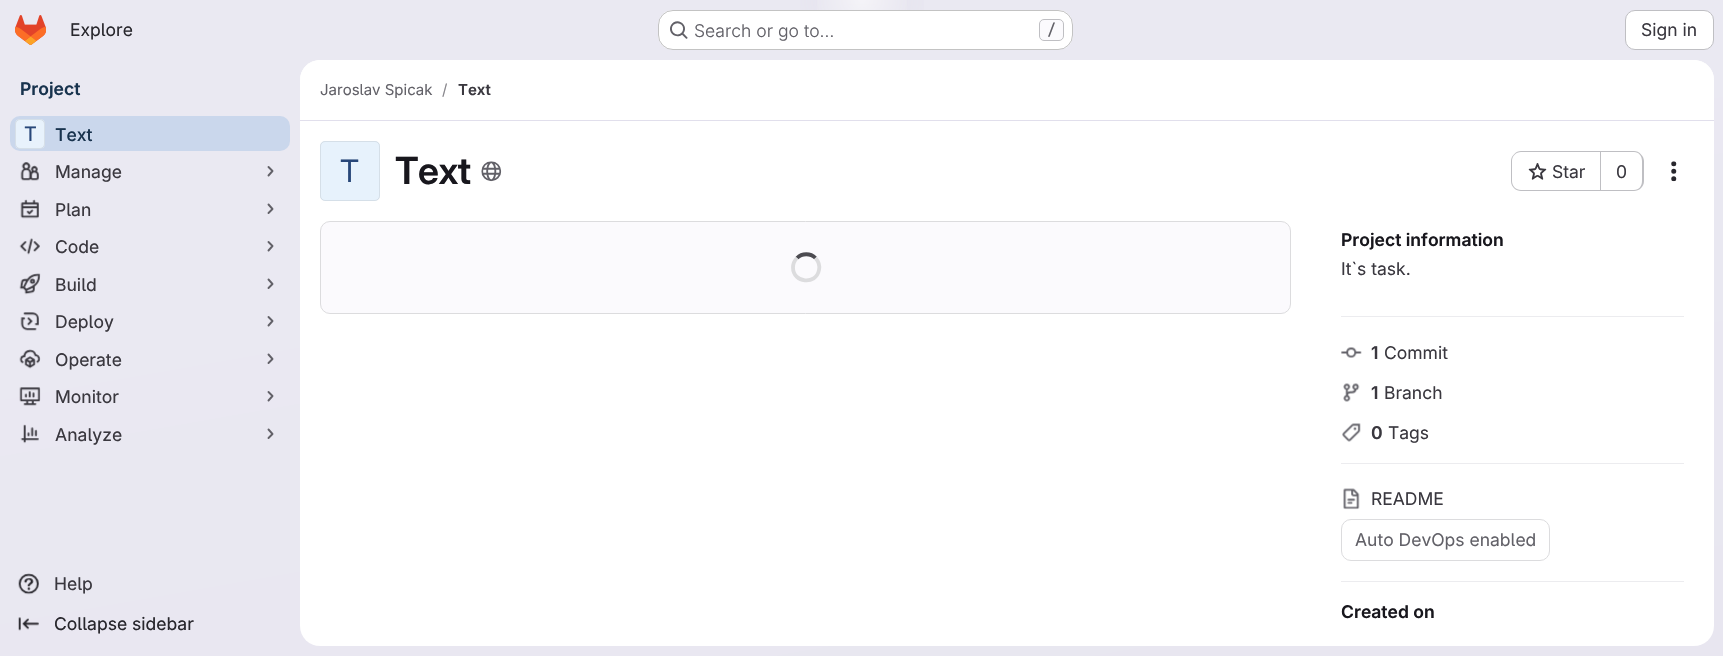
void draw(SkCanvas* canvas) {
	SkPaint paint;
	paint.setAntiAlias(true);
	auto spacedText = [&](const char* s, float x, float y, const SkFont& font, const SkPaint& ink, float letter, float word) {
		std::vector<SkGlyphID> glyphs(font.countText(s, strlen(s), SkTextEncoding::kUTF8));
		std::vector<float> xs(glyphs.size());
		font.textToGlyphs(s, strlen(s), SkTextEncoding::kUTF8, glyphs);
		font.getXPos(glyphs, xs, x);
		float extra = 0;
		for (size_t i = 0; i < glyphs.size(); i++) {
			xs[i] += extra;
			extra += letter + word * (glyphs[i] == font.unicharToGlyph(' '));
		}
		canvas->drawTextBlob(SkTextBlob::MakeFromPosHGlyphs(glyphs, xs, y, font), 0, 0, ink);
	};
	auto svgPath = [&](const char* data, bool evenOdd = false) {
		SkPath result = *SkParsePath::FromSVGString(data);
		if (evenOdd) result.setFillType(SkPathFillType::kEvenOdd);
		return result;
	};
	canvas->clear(0xffffffff);
	{
		const SkColor colors[] = {0xffe8e6f0, 0xffeae9f2};
		const float stops[] = {0, 0.7};
		const SkPoint ends[] = {{944, 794}, {780, -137}};
		paint.setShader(SkGradientShader::MakeLinear(ends, colors, stops, 2, SkTileMode::kClamp));
		paint.setAlpha(255);
	}
	canvas->drawRect(SkRect::MakeXYWH(0, 0, 1723, 656), paint);
	{
		const SkColor colors[] = {0xffe4e2ed, 0x00e4e2ed};
		const float stops[] = {0, 0.1};
		SkMatrix m = SkMatrix::Translate(862, 0).preScale(862, 656);
		paint.setShader(SkGradientShader::MakeRadial({0, 0}, 1, colors, stops, 2, SkTileMode::kClamp, 0, &m));
		paint.setAlpha(255);
	}
	canvas->drawRect(SkRect::MakeXYWH(800, 0, 124, 47), paint);
	{
		const SkColor colors[] = {0xffe4e2ec, 0x00e4e2ec};
		const float stops[] = {0, 0.07};
		SkMatrix m = SkMatrix::Translate(862, 0).preScale(862, 656);
		paint.setShader(SkGradientShader::MakeRadial({0, 0}, 1, colors, stops, 2, SkTileMode::kClamp, 0, &m));
		paint.setAlpha(255);
	}
	canvas->drawRect(SkRect::MakeXYWH(848, 4, 28, 1), paint);
	{
		const SkColor colors[] = {0x99ffffff, 0x00ffffff};
		const float stops[] = {0, 0.05};
		paint.setShader(SkGradientShader::MakeRadial({862, 0}, 1083, colors, stops, 2, SkTileMode::kClamp));
		paint.setAlpha(255);
	}
	canvas->drawRect(SkRect::MakeXYWH(817, 0, 90, 44), paint);
	canvas->drawImageRect(SkImages::DeferredFromEncodedData(SkData::MakeFromFileName("img1.png")), SkRect::MakeXYWH(15, 15, 31, 30), SkSamplingOptions());
	SkFont f1(fontMgr->matchFamilyStyle("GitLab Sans", SkFontStyle::Normal()), 17.5);
	f1.setSubpixel(true);
	paint.setShader(nullptr);
	paint.setColor(0xff28272d);
	canvas->drawString("Explore", 70, 36, f1, paint);
	paint.setColor(0xffffffff);
	canvas->drawRoundRect(SkRect::MakeXYWH(658, 10, 415, 40), 15, 15, paint);
	paint.setStroke(true);
	paint.setStrokeWidth(1);
	paint.setColor(0x3d050506);
	canvas->drawRoundRect(SkRect::MakeXYWH(658.5, 10.5, 414, 39), 14.5, 14.5, paint);
	canvas->drawImageRect(SkImages::DeferredFromEncodedData(SkData::MakeFromFileName("img2.png")), SkRect::MakeXYWH(670, 21, 18, 18), SkSamplingOptions());
	SkFont f2(fontMgr->matchFamilyStyle("GitLab Sans", SkFontStyle(300, SkFontStyle::kNormal_Width, SkFontStyle::kUpright_Slant)), 17.5);
	f2.setSubpixel(true);
	paint.setStroke(false);
	paint.setColor(0xff626168);
	canvas->drawString("Search or go to…", 694, 37, f2, paint);
	paint.setColor(0xfffbfafd);
	canvas->drawRoundRect(SkRect::MakeXYWH(1039.5, 19.5, 24, 21), 4.5, 4.5, paint);
	paint.setStroke(true);
	paint.setColor(0xffbfbfc3);
	canvas->drawRoundRect(SkRect::MakeXYWH(1039.5, 19.5, 24, 21), 4.5, 4.5, paint);
	SkFont f3(fontMgr->matchFamilyStyle("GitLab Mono", SkFontStyle(500, SkFontStyle::kNormal_Width, SkFontStyle::kUpright_Slant)), 15);
	f3.setSubpixel(true);
	paint.setStroke(false);
	paint.setColor(0xff626168);
	canvas->drawString("/", 1047, 35, f3, paint);
	paint.setColor(0xffffffff);
	canvas->drawRoundRect(SkRect::MakeXYWH(1625.5, 10.5, 88, 39), 9.5, 9.5, paint);
	paint.setStroke(true);
	paint.setColor(0xffbfbfc3);
	canvas->drawRoundRect(SkRect::MakeXYWH(1625.5, 10.5, 88, 39), 9.5, 9.5, paint);
	paint.setStroke(false);
	paint.setColor(0xff3a383f);
	canvas->drawString("Sign in", 1641, 36, f1, paint);
	SkFont f4(fontMgr->matchFamilyStyle("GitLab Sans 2", SkFontStyle(600, SkFontStyle::kNormal_Width, SkFontStyle::kUpright_Slant)), 17.5);
	f4.setSubpixel(true);
	paint.setColor(0xff18334e);
	canvas->drawString("Project", 20, 95, f4, paint);
	paint.setColor(0xffcad7ec);
	canvas->drawRoundRect(SkRect::MakeXYWH(10, 116, 280, 35), 10, 10, paint);
	paint.setColor(0xffffffff);
	canvas->drawRoundRect(SkRect::MakeXYWH(15, 119, 30, 30), 5, 5, paint);
	paint.setColor(0x3d9dc7f1);
	canvas->drawRoundRect(SkRect::MakeXYWH(15, 119, 30, 30), 5, 5, paint);
	paint.setStroke(true);
	paint.setColor(0x14050506);
	canvas->drawRoundRect(SkRect::MakeXYWH(15.5, 119.5, 29, 29), 4.5, 4.5, paint);
	SkFont f5(fontMgr->matchFamilyStyle("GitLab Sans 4", SkFontStyle::Normal()), 20);
	f5.setSubpixel(true);
	paint.setStroke(false);
	paint.setColor(0xff284779);
	canvas->drawString("T", 24, 141, f5, paint);
	SkFont f6(fontMgr->matchFamilyStyle("GitLab Sans", SkFontStyle(500, SkFontStyle::kNormal_Width, SkFontStyle::kUpright_Slant)), 17.5);
	f6.setSubpixel(true);
	paint.setColor(0xff18334e);
	canvas->drawString("Text", 55, 141, f6, paint);
	canvas->drawImageRect(SkImages::DeferredFromEncodedData(SkData::MakeFromFileName("img3.png")), SkRect::MakeXYWH(20, 162, 19, 19), SkSamplingOptions());
	SkFont f7(fontMgr->matchFamilyStyle("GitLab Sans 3", SkFontStyle::Normal()), 17.5);
	f7.setSubpixel(true);
	paint.setColor(0xff3a383f);
	canvas->drawString("Manage", 55, 178, f7, paint);
	paint.setStroke(true);
	paint.setStrokeWidth(1.9);
	paint.setStrokeCap(SkPaint::kRound_Cap);
	paint.setStrokeJoin(SkPaint::kRound_Join);
	paint.setColor(0xff626168);
	canvas->drawPath(svgPath("M268.5 167L272.5 171L268.5 175.5"), paint);
	canvas->drawImageRect(SkImages::DeferredFromEncodedData(SkData::MakeFromFileName("img4.png")), SkRect::MakeXYWH(20, 199, 19, 20), SkSamplingOptions());
	paint.setStroke(false);
	paint.setColor(0xff3a383f);
	canvas->drawString("Plan", 55, 216, f7, paint);
	paint.setStroke(true);
	paint.setColor(0xff626168);
	canvas->drawPath(svgPath("M268.5 204.5L272.5 209L268.5 213"), paint);
	canvas->drawImageRect(SkImages::DeferredFromEncodedData(SkData::MakeFromFileName("img5.png")), SkRect::MakeXYWH(19, 238, 21, 17), SkSamplingOptions());
	paint.setStroke(false);
	paint.setColor(0xff3a383f);
	canvas->drawString("Code", 55, 253, f7, paint);
	paint.setStroke(true);
	paint.setColor(0xff626168);
	canvas->drawPath(svgPath("M268.5 242L272.5 246L268.5 250.5"), paint);
	canvas->drawImageRect(SkImages::DeferredFromEncodedData(SkData::MakeFromFileName("img6.png")), SkRect::MakeXYWH(19, 273, 22, 22), SkSamplingOptions());
	paint.setStroke(false);
	paint.setColor(0xff3a383f);
	canvas->drawString("Build", 55, 291, f7, paint);
	paint.setStroke(true);
	paint.setColor(0xff626168);
	canvas->drawPath(svgPath("M268.5 279.5L272.5 284L268.5 288"), paint);
	canvas->drawImageRect(SkImages::DeferredFromEncodedData(SkData::MakeFromFileName("img7.png")), SkRect::MakeXYWH(20, 312, 19, 19), SkSamplingOptions());
	paint.setStroke(false);
	paint.setColor(0xff3a383f);
	canvas->drawString("Deploy", 55, 328, f7, paint);
	paint.setStroke(true);
	paint.setColor(0xff626168);
	canvas->drawPath(svgPath("M268.5 317L272.5 321L268.5 325.5"), paint);
	canvas->drawImageRect(SkImages::DeferredFromEncodedData(SkData::MakeFromFileName("img8.png")), SkRect::MakeXYWH(19, 349, 22, 20), SkSamplingOptions());
	paint.setStroke(false);
	paint.setColor(0xff3a383f);
	canvas->drawString("Operate", 55, 366, f7, paint);
	paint.setStroke(true);
	paint.setColor(0xff626168);
	canvas->drawPath(svgPath("M268.5 354.5L272.5 359L268.5 363"), paint);
	canvas->drawImageRect(SkImages::DeferredFromEncodedData(SkData::MakeFromFileName("img9.png")), SkRect::MakeXYWH(19, 387, 22, 19), SkSamplingOptions());
	paint.setStroke(false);
	paint.setColor(0xff3a383f);
	canvas->drawString("Monitor", 55, 403, f7, paint);
	paint.setStroke(true);
	paint.setColor(0xff626168);
	canvas->drawPath(svgPath("M268.5 392L272.5 396L268.5 400.5"), paint);
	canvas->drawImageRect(SkImages::DeferredFromEncodedData(SkData::MakeFromFileName("img10.png")), SkRect::MakeXYWH(20, 424, 19, 20), SkSamplingOptions());
	paint.setStroke(false);
	paint.setColor(0xff3a383f);
	canvas->drawString("Analyze", 55, 441, f7, paint);
	paint.setStroke(true);
	paint.setColor(0xff626168);
	canvas->drawPath(svgPath("M268.5 429.5L272.5 434L268.5 438"), paint);
	canvas->drawImageRect(SkImages::DeferredFromEncodedData(SkData::MakeFromFileName("img11.png")), SkRect::MakeXYWH(18, 573, 21, 22), SkSamplingOptions());
	paint.setStroke(false);
	paint.setColor(0xff3a383f);
	canvas->drawString("Help", 54, 590, f7, paint);
	canvas->drawImageRect(SkImages::DeferredFromEncodedData(SkData::MakeFromFileName("img12.png")), SkRect::MakeXYWH(18, 617, 21, 14), SkSamplingOptions());
	paint.setColor(0xff28272d);
	canvas->drawString("Collapse sidebar", 54, 630, f7, paint);
	paint.setColor(0xffffffff);
	canvas->drawRoundRect(SkRect::MakeXYWH(300, 60, 1414, 586), 20, 20, paint);
	canvas->drawPath(svgPath("M320 60H1694C1705 60 1714 69 1714 80V121H300V80C300 69 309 60 320 60Z"), paint);
	paint.setColor(0xffe1dfec);
	canvas->drawRect(SkRect::MakeXYWH(300, 120, 1414, 1), paint);
	SkFont f8(fontMgr->matchFamilyStyle("GitLab Sans", SkFontStyle::Normal()), 15);
	f8.setSubpixel(true);
	paint.setColor(0xff626168);
	canvas->drawString("Jaroslav Spicak", 320, 95, f8, paint);
	paint.setColor(0xff89888d);
	canvas->drawString("/", 442, 95, f8, paint);
	SkFont f9(fontMgr->matchFamilyStyle("GitLab Sans 2", SkFontStyle(600, SkFontStyle::kNormal_Width, SkFontStyle::kUpright_Slant)), 15);
	f9.setSubpixel(true);
	paint.setColor(0xff3a383f);
	canvas->drawString("Text", 458, 95, f9, paint);
	paint.setColor(0xffe7f2fc);
	canvas->drawRoundRect(SkRect::MakeXYWH(320, 141, 60, 60), 5, 5, paint);
	paint.setStroke(true);
	paint.setStrokeWidth(1);
	paint.setStrokeCap(SkPaint::kButt_Cap);
	paint.setStrokeJoin(SkPaint::kMiter_Join);
	paint.setColor(0x14050506);
	canvas->drawRoundRect(SkRect::MakeXYWH(320.5, 141.5, 59, 59), 4.5, 4.5, paint);
	SkFont f10(fontMgr->matchFamilyStyle("GitLab Sans 2", SkFontStyle::Normal()), 31);
	f10.setSubpixel(true);
	paint.setStroke(false);
	paint.setColor(0xff284779);
	canvas->drawString("T", 340, 182, f10, paint);
	SkFont f11(fontMgr->matchFamilyStyle("GitLab Sans", SkFontStyle(600, SkFontStyle::kNormal_Width, SkFontStyle::kUpright_Slant)), 37.5);
	f11.setSubpixel(true);
	paint.setColor(0xff18171d);
	spacedText("Text", 395, 184, f11, paint, -0.5, 0);
	canvas->drawImageRect(SkImages::DeferredFromEncodedData(SkData::MakeFromFileName("img13.png")), SkRect::MakeXYWH(481, 161, 21, 21), SkSamplingOptions());
	paint.setColor(0xffbfbfc3);
	canvas->drawPath(svgPath("M1521 151H1600V191H1521C1516 191 1511 187 1511 181V161C1511 156 1516 151 1521 151ZM1521 152H1600V190H1521C1516 190 1512 186 1512 181V161C1512 156 1516 152 1521 152Z", true), paint);
	canvas->drawImageRect(SkImages::DeferredFromEncodedData(SkData::MakeFromFileName("img14.png")), SkRect::MakeXYWH(1528, 163, 19, 17), SkSamplingOptions());
	paint.setColor(0xff3a383f);
	canvas->drawString("Star", 1552, 178, f1, paint);
	paint.setColor(0xffbfbfc3);
	canvas->drawPath(svgPath("M1601 151H1634C1639 151 1644 156 1644 161V181C1644 187 1639 191 1634 191H1601ZM1601 152H1634C1639 152 1642 156 1642 161V181C1642 186 1639 190 1634 190H1601Z", true), paint);
	canvas->drawRect(SkRect::MakeXYWH(1600, 151, 1, 40), paint);
	paint.setColor(0xff3a383f);
	canvas->drawString("0", 1616, 178, f1, paint);
	canvas->drawImageRect(SkImages::DeferredFromEncodedData(SkData::MakeFromFileName("img15.png")), SkRect::MakeXYWH(1671, 161, 6, 21), SkSamplingOptions());
	paint.setColor(0xfffbfafd);
	canvas->drawRoundRect(SkRect::MakeXYWH(320.5, 221.5, 970, 92), 9.5, 9.5, paint);
	paint.setStroke(true);
	paint.setColor(0xffdcdcde);
	canvas->drawRoundRect(SkRect::MakeXYWH(320.5, 221.5, 970, 92), 9.5, 9.5, paint);
	paint.setStrokeWidth(3.8);
	paint.setColor(0xff4c4b51);
	canvas->drawPath(svgPath("M797 258C802 253 810.5 253 815.5 258"), paint);
	paint.setColor(0xffdcdcde);
	canvas->drawPath(svgPath("M815.5 258C818.5 261.5 820 266 819 270C816 285.5 793 283 793 267.5C793 264 794.5 260.5 797 258"), paint);
	paint.setStroke(false);
	paint.setColor(0xffececef);
	canvas->drawRect(SkRect::MakeXYWH(1341, 316, 343, 1), paint);
	paint.setColor(0xff18171d);
	canvas->drawString("Project information", 1341, 246, f4, paint);
	paint.setColor(0xff3a383f);
	canvas->drawString("It`s task.", 1341, 275, f1, paint);
	paint.setColor(0xffececef);
	canvas->drawRect(SkRect::MakeXYWH(1341, 463, 343, 1), paint);
	canvas->drawImageRect(SkImages::DeferredFromEncodedData(SkData::MakeFromFileName("img16.png")), SkRect::MakeXYWH(1341, 347, 21, 11), SkSamplingOptions());
	paint.setColor(0xff3a383f);
	canvas->drawString("1", 1371, 359, f4, paint);
	canvas->drawString("Commit", 1384, 359, f1, paint);
	canvas->drawImageRect(SkImages::DeferredFromEncodedData(SkData::MakeFromFileName("img17.png")), SkRect::MakeXYWH(1343, 383, 17, 19), SkSamplingOptions());
	canvas->drawString("1", 1371, 399, f4, paint);
	canvas->drawString("Branch", 1384, 399, f1, paint);
	canvas->drawImageRect(SkImages::DeferredFromEncodedData(SkData::MakeFromFileName("img18.png")), SkRect::MakeXYWH(1342, 423, 19, 19), SkSamplingOptions());
	canvas->drawString("0", 1371, 439, f4, paint);
	canvas->drawString("Tags", 1388, 439, f1, paint);
	paint.setColor(0xffececef);
	canvas->drawRect(SkRect::MakeXYWH(1341, 581, 343, 1), paint);
	canvas->drawImageRect(SkImages::DeferredFromEncodedData(SkData::MakeFromFileName("img19.png")), SkRect::MakeXYWH(1343, 488, 17, 22), SkSamplingOptions());
	paint.setColor(0xff3a383f);
	canvas->drawString("README", 1371, 505, f1, paint);
	paint.setStroke(true);
	paint.setStrokeWidth(1);
	paint.setColor(0xffdcdcde);
	canvas->drawRoundRect(SkRect::MakeXYWH(1341.5, 519.5, 208, 41), 9.5, 9.5, paint);
	paint.setStroke(false);
	paint.setColor(0xff626168);
	canvas->drawString("Auto DevOps enabled", 1355, 546, f1, paint);
	paint.setColor(0xff18171d);
	canvas->drawString("Created on", 1341, 618, f4, paint);
}
